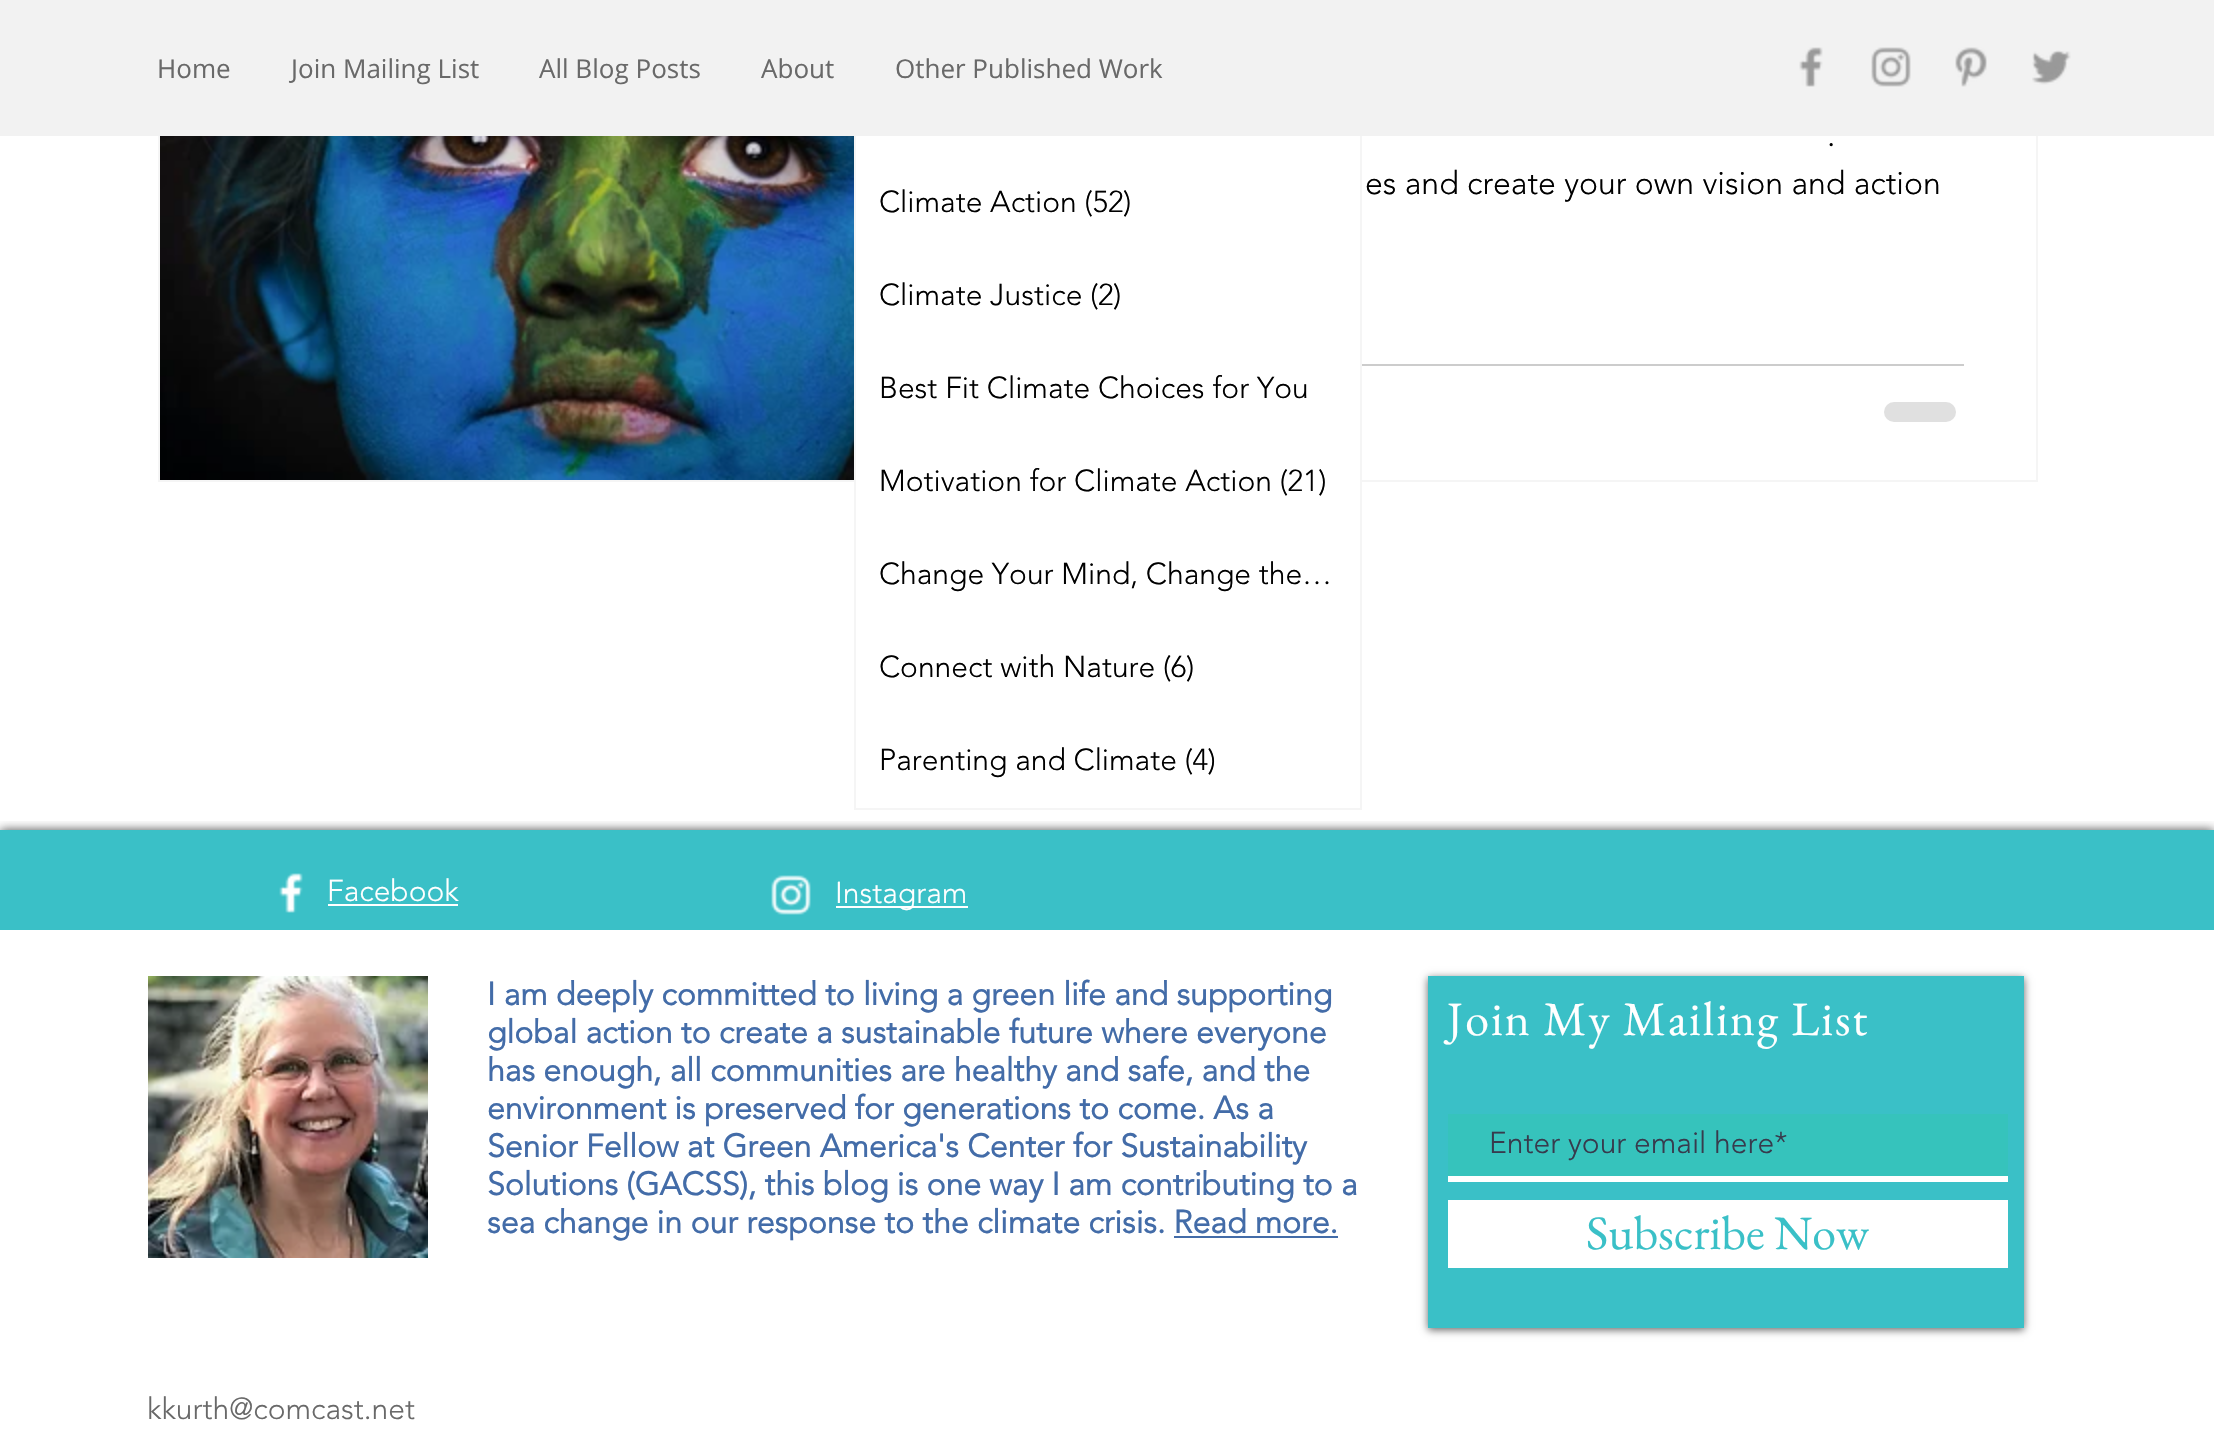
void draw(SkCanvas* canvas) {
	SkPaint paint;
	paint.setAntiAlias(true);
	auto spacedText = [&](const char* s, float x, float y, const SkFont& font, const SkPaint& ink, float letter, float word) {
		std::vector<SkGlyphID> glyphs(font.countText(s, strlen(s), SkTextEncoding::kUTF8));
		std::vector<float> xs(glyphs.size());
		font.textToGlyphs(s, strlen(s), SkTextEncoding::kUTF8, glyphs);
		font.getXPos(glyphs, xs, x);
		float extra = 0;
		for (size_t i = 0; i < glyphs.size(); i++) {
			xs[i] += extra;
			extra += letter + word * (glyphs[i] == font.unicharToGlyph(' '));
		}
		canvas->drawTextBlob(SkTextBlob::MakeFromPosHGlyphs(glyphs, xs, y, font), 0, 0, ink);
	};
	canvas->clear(0xffffffff);
	paint.setStroke(true);
	paint.setStrokeWidth(2);
	paint.setColor(0xfff5f5f5);
	canvas->drawRect(SkRect::MakeXYWH(159, -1, 1878, 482), paint);
	paint.setStroke(false);
	paint.setColor(0xffffffff);
	canvas->drawRect(SkRect::MakeXYWH(856, 480, 504, 2), paint);
	paint.setStroke(true);
	paint.setColor(0xfff5f5f5);
	canvas->drawRect(SkRect::MakeXYWH(855, -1, 506, 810), paint);
	paint.setStroke(false);
	paint.setColor(0xfff2f2f2);
	canvas->drawRect(SkRect::MakeXYWH(0, 0, 2214, 136), paint);
	SkFont f1(fontMgr->matchFamilyStyle("Open Sans", SkFontStyle::Normal()), 26);
	f1.setSubpixel(true);
	paint.setColor(0xff696969);
	canvas->drawString("Home", 157, 78, f1, paint);
	canvas->drawString("Join Mailing List", 291, 78, f1, paint);
	canvas->drawString("All Blog Posts", 539, 78, f1, paint);
	canvas->drawString("About", 761, 78, f1, paint);
	canvas->drawString("Other Published Work", 895, 78, f1, paint);
	canvas->drawImageRect(SkImages::DeferredFromEncodedData(SkData::MakeFromFileName("img1.png")), SkRect::MakeXYWH(1799, 47, 24, 40), SkSamplingOptions());
	canvas->drawImageRect(SkImages::DeferredFromEncodedData(SkData::MakeFromFileName("img2.png")), SkRect::MakeXYWH(1871, 47, 40, 40), SkSamplingOptions());
	canvas->drawImageRect(SkImages::DeferredFromEncodedData(SkData::MakeFromFileName("img3.png")), SkRect::MakeXYWH(1955, 47, 32, 40), SkSamplingOptions());
	canvas->drawImageRect(SkImages::DeferredFromEncodedData(SkData::MakeFromFileName("img4.png")), SkRect::MakeXYWH(2032, 50, 39, 35), SkSamplingOptions());
	canvas->drawImageRect(SkImages::DeferredFromEncodedData(SkData::MakeFromFileName("img5.png")), SkRect::MakeXYWH(160, 136, 694, 344), SkSamplingOptions());
	SkFont f2(fontMgr->matchFamilyStyle("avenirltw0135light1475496", SkFontStyle(300, SkFontStyle::kNormal_Width, SkFontStyle::kUpright_Slant)), 32);
	f2.setSubpixel(true);
	paint.setColor(0xff000000);
	canvas->drawString(".", 1827, 146, f2, paint);
	canvas->drawString("es and create your own vision and action", 1365, 194, f2, paint);
	paint.setColor(0xffcccccc);
	canvas->drawRect(SkRect::MakeXYWH(1362, 364, 602, 2), paint);
	paint.setColor(0xffe0e0e0);
	canvas->drawRoundRect(SkRect::MakeXYWH(1884, 402, 72, 20), 10, 10, paint);
	SkFont f3(fontMgr->matchFamilyStyle("avenirltw0135light1475496", SkFontStyle(300, SkFontStyle::kNormal_Width, SkFontStyle::kUpright_Slant)), 30);
	f3.setSubpixel(true);
	paint.setColor(0xff000000);
	canvas->drawString("Climate Action (52)", 879, 212, f3, paint);
	canvas->drawString("Climate Justice (2)", 879, 305, f3, paint);
	canvas->drawString("Best Fit Climate Choices for You", 879, 398, f3, paint);
	canvas->drawString("Motivation for Climate Action (21)", 879, 491, f3, paint);
	canvas->drawString("Change Your Mind, Change the…", 879, 584, f3, paint);
	canvas->drawString("Connect with Nature (6)", 879, 677, f3, paint);
	canvas->drawString("Parenting and Climate (4)", 879, 770, f3, paint);
	canvas->save();
	canvas->clipRect(SkRect::MakeXYWH(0, 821, 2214, 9));
	paint.setColor(0xb3000000);
	paint.setMaskFilter(SkMaskFilter::MakeBlur(kNormal_SkBlurStyle, 5));
	canvas->drawRect(SkRect::MakeXYWH(0, 830, 2214, 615), paint);
	paint.setMaskFilter(nullptr);
	canvas->restore();
	paint.setColor(0xff3ac0c7);
	canvas->drawRect(SkRect::MakeXYWH(0, 830, 2214, 100), paint);
	canvas->drawImageRect(SkImages::DeferredFromEncodedData(SkData::MakeFromFileName("img6.png")), SkRect::MakeXYWH(279, 873, 24, 40), SkSamplingOptions());
	paint.setColor(0xffffffff);
	canvas->drawString("Facebook", 327, 901, f3, paint);
	canvas->drawRect(SkRect::MakeXYWH(328, 904, 130, 2), paint);
	canvas->drawImageRect(SkImages::DeferredFromEncodedData(SkData::MakeFromFileName("img7.png")), SkRect::MakeXYWH(771, 875, 40, 40), SkSamplingOptions());
	canvas->drawRect(SkRect::MakeXYWH(836, 906, 132, 2), paint);
	canvas->drawString("Instagram", 835, 903, f3, paint);
	canvas->drawImageRect(SkImages::DeferredFromEncodedData(SkData::MakeFromFileName("img8.png")), SkRect::MakeXYWH(148, 976, 280, 282), SkSamplingOptions());
	SkFont f4(fontMgr->matchFamilyStyle("avenirltw0135light1475496", SkFontStyle::Bold()), 32);
	f4.setSubpixel(true);
	paint.setColor(0xff436ca8);
	canvas->drawString("I am deeply committed to living a green life and supporting", 487, 1005, f4, paint);
	canvas->drawString("global action to create a sustainable future where everyone", 487, 1043, f4, paint);
	canvas->drawString("has enough, all communities are healthy and safe, and the", 487, 1081, f4, paint);
	canvas->drawString("environment is preserved for generations to come. As a", 487, 1119, f4, paint);
	canvas->drawString("Senior Fellow at Green America's Center for Sustainability", 487, 1157, f4, paint);
	canvas->drawString("Solutions (GACSS), this blog is one way I am contributing to a", 487, 1195, f4, paint);
	canvas->drawString("sea change in our response to the climate crisis. Read more.", 487, 1233, f4, paint);
	canvas->drawRect(SkRect::MakeXYWH(1174, 1236, 164, 2), paint);
	paint.setColor(0x99000000);
	paint.setMaskFilter(SkMaskFilter::MakeBlur(kNormal_SkBlurStyle, 4));
	canvas->drawRect(SkRect::MakeXYWH(1428, 978, 596, 352), paint);
	paint.setMaskFilter(nullptr);
	paint.setColor(0xff3ac0c7);
	canvas->drawRect(SkRect::MakeXYWH(1428, 976, 596, 352), paint);
	SkFont f5(fontMgr->matchFamilyStyle("EB Garamond", SkFontStyle::Normal()), 48);
	f5.setSubpixel(true);
	paint.setColor(0xffffffff);
	spacedText("Join My Mailing List", 1447, 1035, f5, paint, 1.9, 0);
	paint.setColor(0xff36c3bc);
	canvas->drawRect(SkRect::MakeXYWH(1448, 1114, 560, 62), paint);
	paint.setColor(0xffffffff);
	canvas->drawRect(SkRect::MakeXYWH(1448, 1176, 560, 6), paint);
	paint.setColor(0xff373b4d);
	canvas->drawString("Enter your email here*", 1489, 1153, f3, paint);
	paint.setColor(0xffffffff);
	canvas->drawRect(SkRect::MakeXYWH(1448, 1200, 560, 68), paint);
	paint.setColor(0xff3ac0c7);
	canvas->drawString("Subscribe Now", 1586, 1249, f5, paint);
	paint.setColor(0xff696969);
	canvas->drawString("kkurth@comcast.net", 147, 1419, f3, paint);
}
